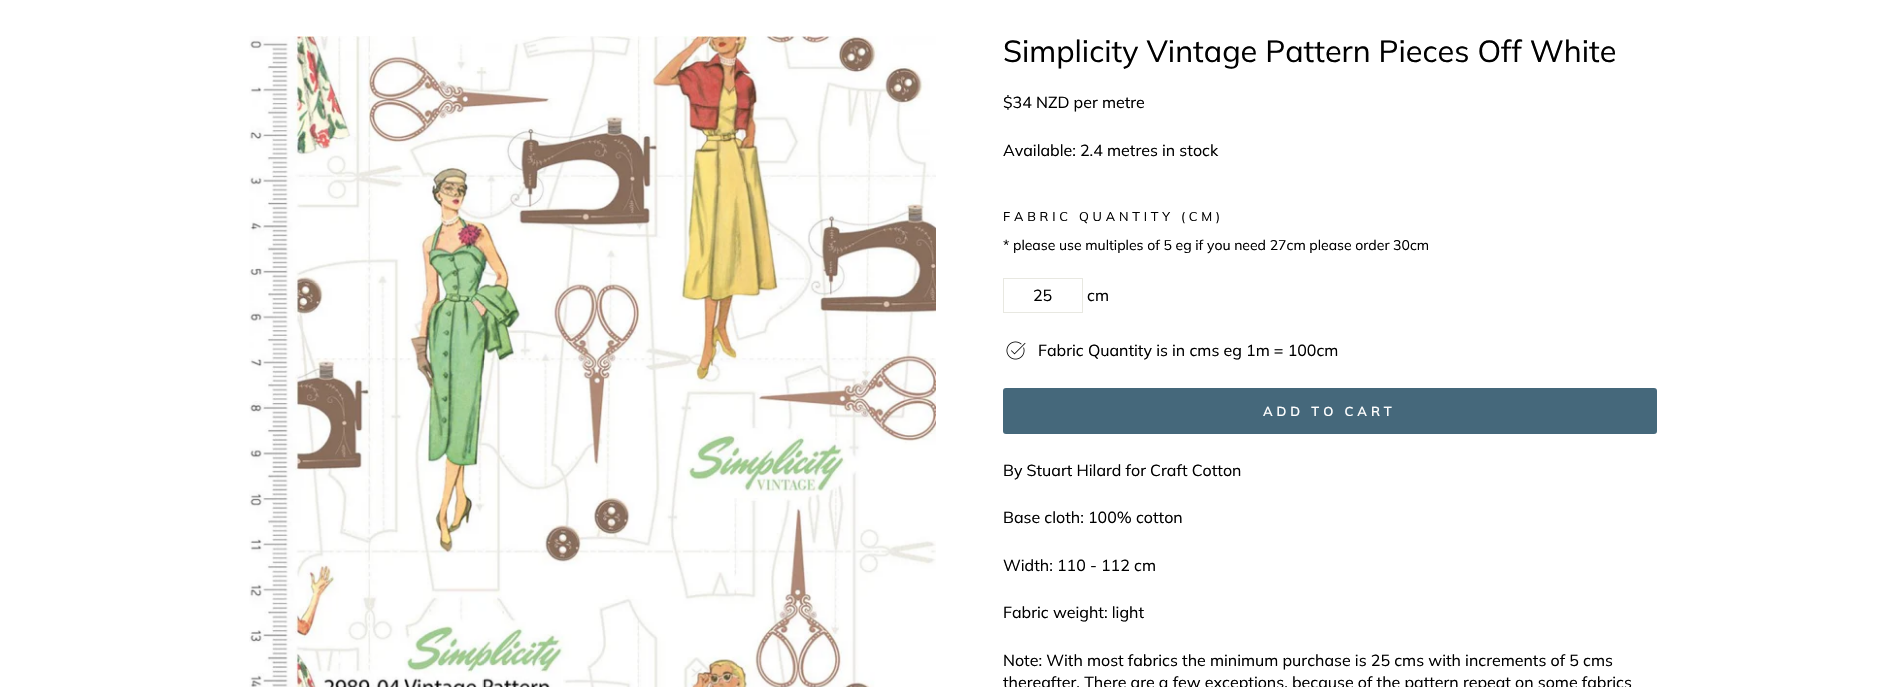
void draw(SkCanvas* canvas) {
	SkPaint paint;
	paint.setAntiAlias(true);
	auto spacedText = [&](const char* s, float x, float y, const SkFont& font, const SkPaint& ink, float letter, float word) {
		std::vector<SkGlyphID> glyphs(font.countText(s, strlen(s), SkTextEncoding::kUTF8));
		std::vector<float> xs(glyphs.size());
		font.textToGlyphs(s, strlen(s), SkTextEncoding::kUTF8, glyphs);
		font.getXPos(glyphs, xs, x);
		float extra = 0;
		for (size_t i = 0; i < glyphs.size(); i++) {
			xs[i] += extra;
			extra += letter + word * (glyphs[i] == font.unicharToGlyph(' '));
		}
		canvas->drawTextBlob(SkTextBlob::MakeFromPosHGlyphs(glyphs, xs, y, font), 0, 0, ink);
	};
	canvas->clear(0xffffffff);
	canvas->drawImageRect(SkImages::DeferredFromEncodedData(SkData::MakeFromFileName("img1.png")), SkRect::MakeXYWH(249, 36, 687, 651), SkSamplingOptions());
	SkFont f1(fontMgr->matchFamilyStyle("Muli", SkFontStyle::Normal()), 30.6);
	f1.setSubpixel(true);
	paint.setColor(0xff000000);
	canvas->drawString("Simplicity Vintage Pattern Pieces Off White", 1003, 62, f1, paint);
	SkFont f2(fontMgr->matchFamilyStyle("Muli", SkFontStyle::Normal()), 16);
	f2.setSubpixel(true);
	canvas->drawString("$34 NZD per metre", 1003, 108, f2, paint);
	canvas->drawString("Available: 2.4 metres in stock", 1003, 156, f2, paint);
	SkFont f3(fontMgr->matchFamilyStyle("Muli", SkFontStyle::Normal()), 12.75);
	f3.setSubpixel(true);
	spacedText("FABRIC QUANTITY (CM)", 1003, 221, f3, paint, 3.8, 0);
	SkFont f4(fontMgr->matchFamilyStyle("Muli", SkFontStyle::Normal()), 14);
	f4.setSubpixel(true);
	canvas->drawString("* please use multiples of 5 eg if you need 27cm please order 30cm", 1003, 250, f4, paint);
	paint.setStroke(true);
	paint.setStrokeWidth(1);
	paint.setColor(0xffe8e8e1);
	canvas->drawRect(SkRect::MakeXYWH(1003.5, 278.5, 79, 34), paint);
	paint.setStroke(false);
	paint.setColor(0xff000000);
	canvas->drawString("25", 1033, 301, f2, paint);
	canvas->drawString("cm", 1087, 301, f2, paint);
	canvas->drawImageRect(SkImages::DeferredFromEncodedData(SkData::MakeFromFileName("img2.png")), SkRect::MakeXYWH(1006, 341, 20, 19), SkSamplingOptions());
	canvas->drawString("Fabric Quantity is in cms eg 1m = 100cm", 1038, 356, f2, paint);
	paint.setColor(0xff45687b);
	canvas->drawRoundRect(SkRect::MakeXYWH(1003, 388, 654, 46), 3, 3, paint);
	SkFont f5(fontMgr->matchFamilyStyle("Muli", SkFontStyle(600, SkFontStyle::kNormal_Width, SkFontStyle::kUpright_Slant)), 13);
	f5.setSubpixel(true);
	paint.setColor(0xffffffff);
	spacedText("ADD TO CART", 1263, 416, f5, paint, 3.9, 0);
	paint.setColor(0xff000000);
	canvas->drawString("By Stuart Hilard for Craft Cotton", 1003, 476, f2, paint);
	canvas->drawString("Base cloth: 100% cotton", 1003, 523, f2, paint);
	canvas->drawString("Width: 110 - 112 cm", 1003, 571, f2, paint);
	canvas->drawString("Fabric weight: light", 1003, 618, f2, paint);
	canvas->drawString("Note: With most fabrics the minimum purchase is 25 cms with increments of 5 cms", 1003, 666, f2, paint);
	canvas->drawString("thereafter. There are a few exceptions, because of the pattern repeat on some fabrics", 1003, 688, f2, paint);
}
